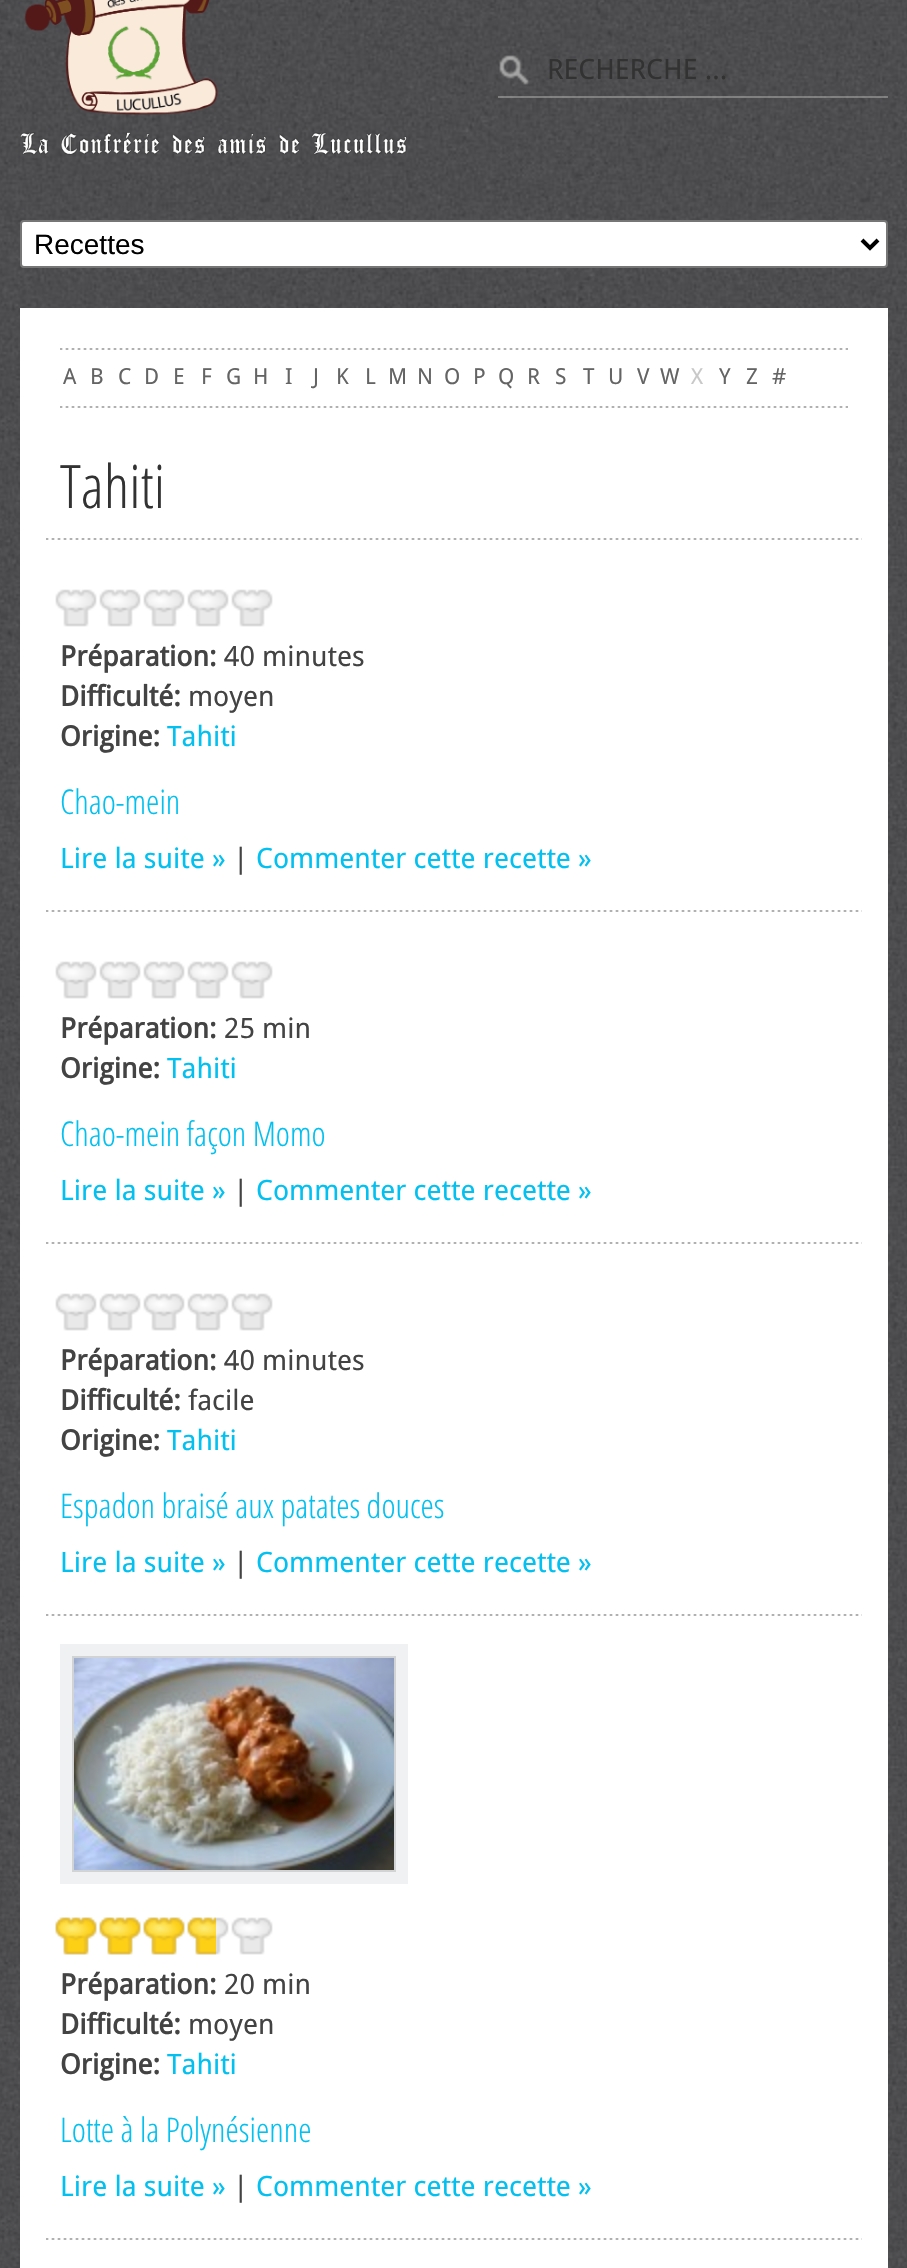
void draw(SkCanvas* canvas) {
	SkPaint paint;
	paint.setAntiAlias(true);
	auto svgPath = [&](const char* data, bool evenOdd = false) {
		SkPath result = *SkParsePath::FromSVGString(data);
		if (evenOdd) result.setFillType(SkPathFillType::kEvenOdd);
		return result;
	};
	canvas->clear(0xffffffff);
	canvas->drawImageRect(SkImages::DeferredFromEncodedData(SkData::MakeFromFileName("img1.png")), SkRect::MakeXYWH(0, 0, 907, 2268), SkSamplingOptions());
	canvas->drawImageRect(SkImages::DeferredFromEncodedData(SkData::MakeFromFileName("img2.png")), SkRect::MakeXYWH(24, 0, 194, 115), SkSamplingOptions());
	canvas->drawImageRect(SkImages::DeferredFromEncodedData(SkData::MakeFromFileName("img3.png")), SkRect::MakeXYWH(20, 132, 387, 23), SkSamplingOptions());
	canvas->drawImageRect(SkImages::DeferredFromEncodedData(SkData::MakeFromFileName("img4.png")), SkRect::MakeXYWH(499, 55, 30, 30), SkSamplingOptions());
	paint.setColor(0x66cccccc);
	canvas->drawRect(SkRect::MakeXYWH(498, 96, 390, 2), paint);
	SkFont f1(fontMgr->matchFamilyStyle("Droid Sans", SkFontStyle::Normal()), 28);
	f1.setSubpixel(true);
	paint.setColor(0xff323232);
	canvas->drawString("RECHERCHE ...", 547, 79, f1, paint);
	paint.setColor(0xffffffff);
	canvas->drawRoundRect(SkRect::MakeXYWH(21, 221, 866, 46), 3, 3, paint);
	paint.setStroke(true);
	paint.setStrokeWidth(2);
	paint.setColor(0xff767676);
	canvas->drawRoundRect(SkRect::MakeXYWH(21, 221, 866, 46), 3, 3, paint);
	paint.setStrokeWidth(4);
	paint.setColor(0xff000000);
	canvas->drawPath(svgPath("M862 240L870 248L878 240"), paint);
	SkFont f2(fontMgr->matchFamilyStyle("Liberation Sans", SkFontStyle::Normal()), 28);
	f2.setSubpixel(true);
	paint.setStroke(false);
	canvas->drawString("Recettes", 34, 254, f2, paint);
	paint.setColor(0xffffffff);
	canvas->drawRect(SkRect::MakeXYWH(20, 308, 868, 1960), paint);
	canvas->drawImageRect(SkImages::DeferredFromEncodedData(SkData::MakeFromFileName("img5.png")), SkRect::MakeXYWH(60, 406, 788, 2), SkSamplingOptions());
	canvas->drawImageRect(SkImages::DeferredFromEncodedData(SkData::MakeFromFileName("img5.png")), SkRect::MakeXYWH(60, 348, 788, 2), SkSamplingOptions());
	SkFont f3(fontMgr->matchFamilyStyle("Droid Sans", SkFontStyle::Normal()), 22);
	f3.setSubpixel(true);
	paint.setColor(0xff646464);
	canvas->drawString("A", 63, 384, f3, paint);
	canvas->drawString("B", 90, 384, f3, paint);
	canvas->drawString("C", 118, 384, f3, paint);
	canvas->drawString("D", 144, 384, f3, paint);
	canvas->drawString("E", 173, 384, f3, paint);
	canvas->drawString("F", 201, 384, f3, paint);
	canvas->drawString("G", 226, 384, f3, paint);
	canvas->drawString("H", 253, 384, f3, paint);
	canvas->drawString("I", 285, 384, f3, paint);
	canvas->drawString("J", 313, 384, f3, paint);
	canvas->drawString("K", 336, 384, f3, paint);
	canvas->drawString("L", 365, 384, f3, paint);
	canvas->drawString("M", 388, 384, f3, paint);
	canvas->drawString("N", 417, 384, f3, paint);
	canvas->drawString("O", 444, 384, f3, paint);
	canvas->drawString("P", 473, 384, f3, paint);
	canvas->drawString("Q", 498, 384, f3, paint);
	canvas->drawString("R", 527, 384, f3, paint);
	canvas->drawString("S", 555, 384, f3, paint);
	canvas->drawString("T", 583, 384, f3, paint);
	canvas->drawString("U", 608, 384, f3, paint);
	canvas->drawString("V", 637, 384, f3, paint);
	canvas->drawString("W", 660, 384, f3, paint);
	paint.setColor(0xffc8c8c8);
	canvas->drawString("X", 691, 384, f3, paint);
	paint.setColor(0xff646464);
	canvas->drawString("Y", 719, 384, f3, paint);
	canvas->drawString("Z", 746, 384, f3, paint);
	canvas->drawString("#", 772, 384, f3, paint);
	SkFont f4(fontMgr->matchFamilyStyle("Open Sans", SkFontStyle(300, SkFontStyle::kNormal_Width, SkFontStyle::kUpright_Slant)), 60);
	f4.setSubpixel(true);
	paint.setColor(0xff323232);
	canvas->drawString("Tahiti", 60, 508, f4, paint);
	canvas->drawImageRect(SkImages::DeferredFromEncodedData(SkData::MakeFromFileName("img6.png")), SkRect::MakeXYWH(46, 538, 816, 2), SkSamplingOptions());
	canvas->drawImageRect(SkImages::DeferredFromEncodedData(SkData::MakeFromFileName("img7.png")), SkRect::MakeXYWH(55, 589, 218, 38), SkSamplingOptions());
	SkFont f5(fontMgr->matchFamilyStyle("Droid Sans", SkFontStyle::Bold()), 28);
	f5.setSubpixel(true);
	paint.setColor(0xff434343);
	canvas->drawString("Préparation:", 60, 666, f5, paint);
	canvas->drawString("40 minutes", 224, 666, f1, paint);
	canvas->drawString("Difficulté:", 60, 706, f5, paint);
	canvas->drawString("moyen", 188, 706, f1, paint);
	canvas->drawString("Origine:", 60, 746, f5, paint);
	paint.setColor(0xff02c0ef);
	canvas->drawString("Tahiti", 167, 746, f1, paint);
	SkFont f6(fontMgr->matchFamilyStyle("Open Sans", SkFontStyle(300, SkFontStyle::kNormal_Width, SkFontStyle::kUpright_Slant)), 34);
	f6.setSubpixel(true);
	canvas->drawString("Chao-mein", 60, 814, f6, paint);
	canvas->drawString("Lire la suite »", 60, 868, f1, paint);
	paint.setColor(0xff434343);
	canvas->drawString("|", 233, 868, f1, paint);
	paint.setColor(0xff02c0ef);
	canvas->drawString("Commenter cette recette »", 256, 868, f1, paint);
	canvas->drawImageRect(SkImages::DeferredFromEncodedData(SkData::MakeFromFileName("img6.png")), SkRect::MakeXYWH(46, 910, 816, 2), SkSamplingOptions());
	canvas->drawImageRect(SkImages::DeferredFromEncodedData(SkData::MakeFromFileName("img7.png")), SkRect::MakeXYWH(55, 961, 218, 38), SkSamplingOptions());
	paint.setColor(0xff434343);
	canvas->drawString("Préparation:", 60, 1038, f5, paint);
	canvas->drawString("25 min", 224, 1038, f1, paint);
	canvas->drawString("Origine:", 60, 1078, f5, paint);
	paint.setColor(0xff02c0ef);
	canvas->drawString("Tahiti", 167, 1078, f1, paint);
	canvas->drawString("Chao-mein façon Momo", 60, 1146, f6, paint);
	canvas->drawString("Lire la suite »", 60, 1200, f1, paint);
	paint.setColor(0xff434343);
	canvas->drawString("|", 233, 1200, f1, paint);
	paint.setColor(0xff02c0ef);
	canvas->drawString("Commenter cette recette »", 256, 1200, f1, paint);
	canvas->drawImageRect(SkImages::DeferredFromEncodedData(SkData::MakeFromFileName("img6.png")), SkRect::MakeXYWH(46, 1242, 816, 2), SkSamplingOptions());
	canvas->drawImageRect(SkImages::DeferredFromEncodedData(SkData::MakeFromFileName("img7.png")), SkRect::MakeXYWH(55, 1293, 218, 38), SkSamplingOptions());
	paint.setColor(0xff434343);
	canvas->drawString("Préparation:", 60, 1370, f5, paint);
	canvas->drawString("40 minutes", 224, 1370, f1, paint);
	canvas->drawString("Difficulté:", 60, 1410, f5, paint);
	canvas->drawString("facile", 188, 1410, f1, paint);
	canvas->drawString("Origine:", 60, 1450, f5, paint);
	paint.setColor(0xff02c0ef);
	canvas->drawString("Tahiti", 167, 1450, f1, paint);
	canvas->drawString("Espadon braisé aux patates douces", 60, 1518, f6, paint);
	canvas->drawString("Lire la suite »", 60, 1572, f1, paint);
	paint.setColor(0xff434343);
	canvas->drawString("|", 233, 1572, f1, paint);
	paint.setColor(0xff02c0ef);
	canvas->drawString("Commenter cette recette »", 256, 1572, f1, paint);
	canvas->drawImageRect(SkImages::DeferredFromEncodedData(SkData::MakeFromFileName("img6.png")), SkRect::MakeXYWH(46, 1614, 816, 2), SkSamplingOptions());
	paint.setStroke(true);
	paint.setStrokeWidth(12);
	paint.setColor(0xfff0f1f2);
	canvas->drawRect(SkRect::MakeXYWH(66, 1650, 336, 228), paint);
	paint.setStrokeWidth(2);
	paint.setColor(0xffd2d3d4);
	canvas->drawRect(SkRect::MakeXYWH(73, 1657, 322, 214), paint);
	canvas->drawImageRect(SkImages::DeferredFromEncodedData(SkData::MakeFromFileName("img8.png")), SkRect::MakeXYWH(74, 1658, 320, 212), SkSamplingOptions());
	canvas->drawImageRect(SkImages::DeferredFromEncodedData(SkData::MakeFromFileName("img7.png")), SkRect::MakeXYWH(55, 1917, 218, 38), SkSamplingOptions());
	canvas->drawImageRect(SkImages::DeferredFromEncodedData(SkData::MakeFromFileName("img9.png")), SkRect::MakeXYWH(55, 1917, 161, 38), SkSamplingOptions());
	paint.setStroke(false);
	paint.setColor(0xff434343);
	canvas->drawString("Préparation:", 60, 1994, f5, paint);
	canvas->drawString("20 min", 224, 1994, f1, paint);
	canvas->drawString("Difficulté:", 60, 2034, f5, paint);
	canvas->drawString("moyen", 188, 2034, f1, paint);
	canvas->drawString("Origine:", 60, 2074, f5, paint);
	paint.setColor(0xff02c0ef);
	canvas->drawString("Tahiti", 167, 2074, f1, paint);
	canvas->drawString("Lotte à la Polynésienne", 60, 2142, f6, paint);
	canvas->drawString("Lire la suite »", 60, 2196, f1, paint);
	paint.setColor(0xff434343);
	canvas->drawString("|", 233, 2196, f1, paint);
	paint.setColor(0xff02c0ef);
	canvas->drawString("Commenter cette recette »", 256, 2196, f1, paint);
	canvas->drawImageRect(SkImages::DeferredFromEncodedData(SkData::MakeFromFileName("img6.png")), SkRect::MakeXYWH(46, 2238, 816, 2), SkSamplingOptions());
}
